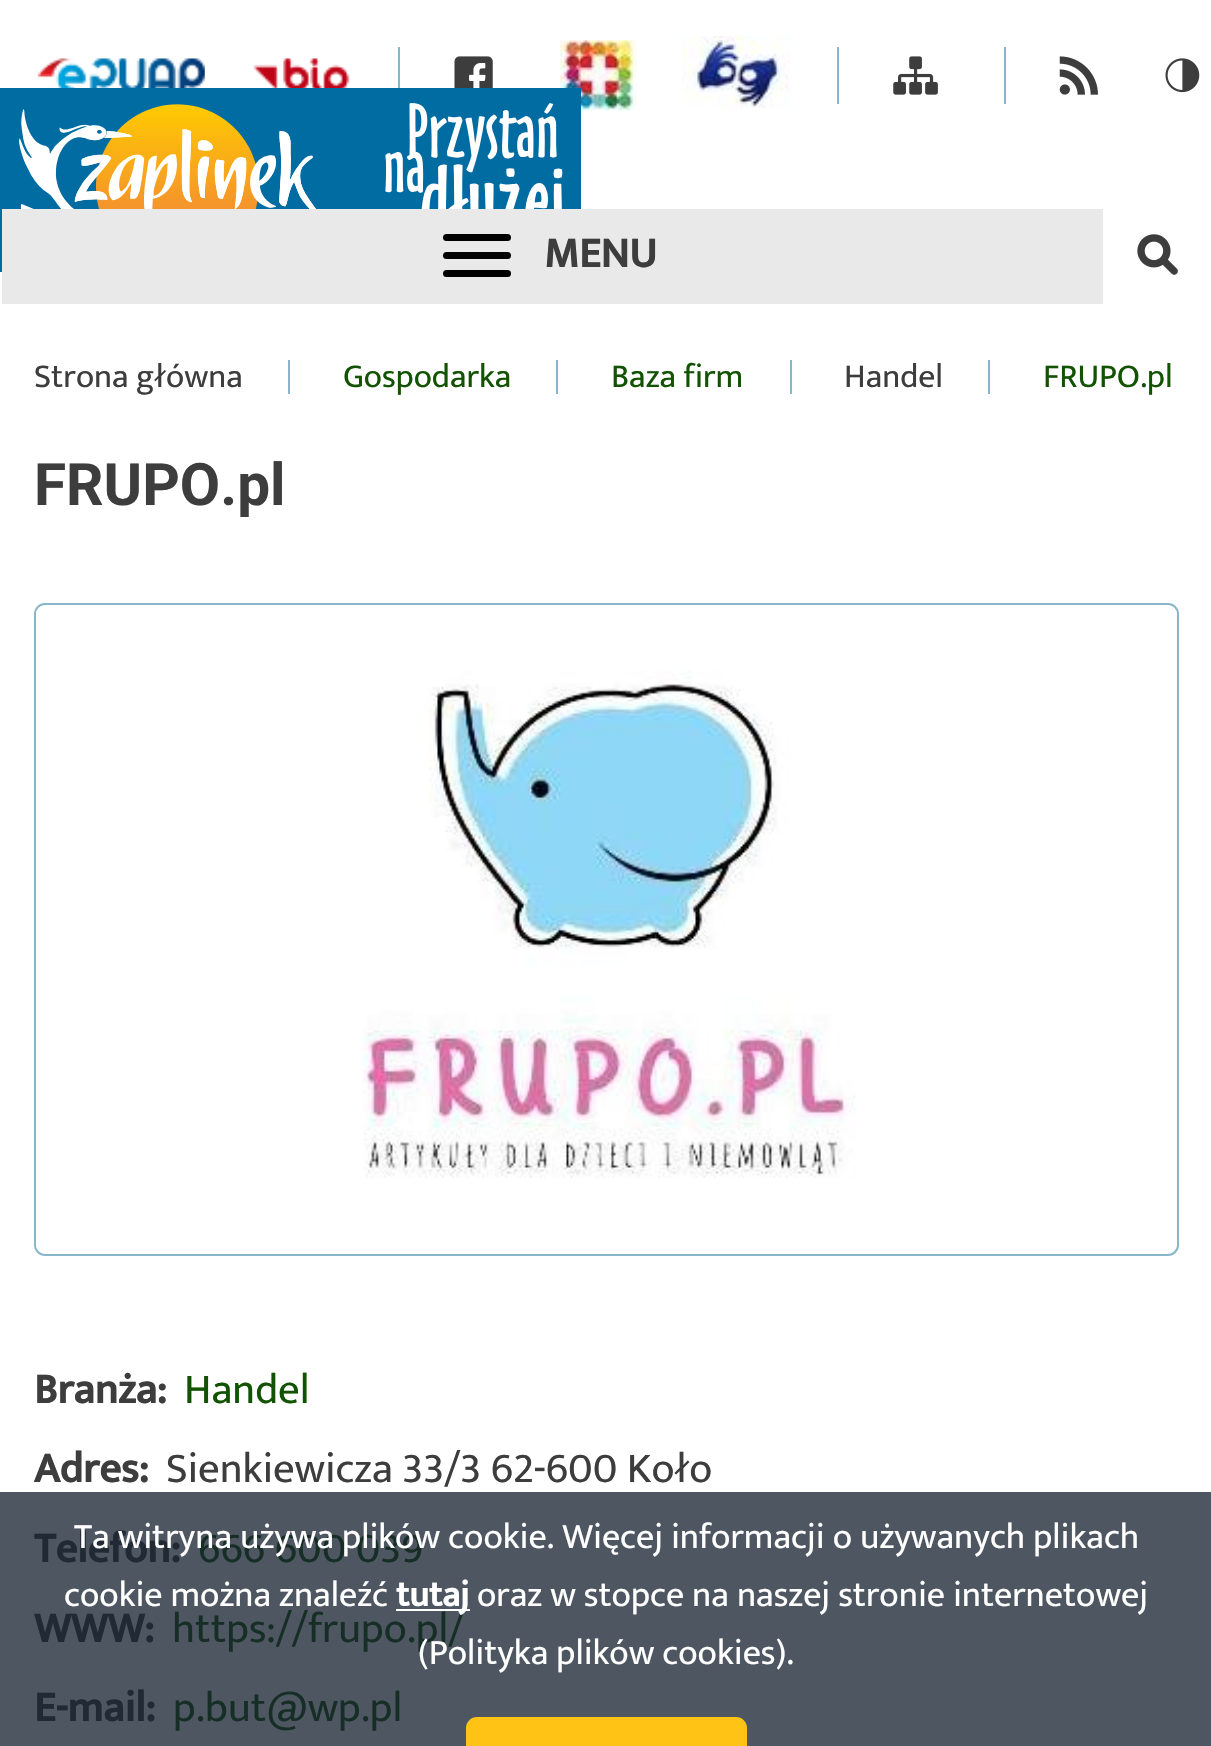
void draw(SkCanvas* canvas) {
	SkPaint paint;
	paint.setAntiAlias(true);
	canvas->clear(0xffffffff);
	paint.setColor(0xff4d5661);
	canvas->drawRect(SkRect::MakeXYWH(0, 1492, 1211, 254), paint);
	canvas->drawImageRect(SkImages::DeferredFromEncodedData(SkData::MakeFromFileName("img1.png")), SkRect::MakeXYWH(38, 58, 167, 30), SkSamplingOptions());
	canvas->drawImageRect(SkImages::DeferredFromEncodedData(SkData::MakeFromFileName("img2.png")), SkRect::MakeXYWH(253, 58, 97, 30), SkSamplingOptions());
	paint.setColor(0xff88b6cb);
	canvas->drawRect(SkRect::MakeXYWH(398, 47, 2, 41), paint);
	canvas->drawImageRect(SkImages::DeferredFromEncodedData(SkData::MakeFromFileName("img3.png")), SkRect::MakeXYWH(454, 56, 39, 32), SkSamplingOptions());
	canvas->drawImageRect(SkImages::DeferredFromEncodedData(SkData::MakeFromFileName("img4.png")), SkRect::MakeXYWH(560, 40, 77, 71), SkSamplingOptions());
	canvas->drawImageRect(SkImages::DeferredFromEncodedData(SkData::MakeFromFileName("img5.png")), SkRect::MakeXYWH(682, 36, 108, 72), SkSamplingOptions());
	canvas->drawRect(SkRect::MakeXYWH(837, 47, 2, 57), paint);
	canvas->drawImageRect(SkImages::DeferredFromEncodedData(SkData::MakeFromFileName("img6.png")), SkRect::MakeXYWH(893, 56, 45, 39), SkSamplingOptions());
	canvas->drawRect(SkRect::MakeXYWH(1004, 47, 2, 57), paint);
	canvas->drawImageRect(SkImages::DeferredFromEncodedData(SkData::MakeFromFileName("img7.png")), SkRect::MakeXYWH(1059, 56, 39, 39), SkSamplingOptions());
	canvas->drawImageRect(SkImages::DeferredFromEncodedData(SkData::MakeFromFileName("img8.png")), SkRect::MakeXYWH(1165, 58, 35, 35), SkSamplingOptions());
	paint.setColor(0xff016ca2);
	canvas->drawRect(SkRect::MakeXYWH(0, 88, 581, 184), paint);
	canvas->drawImageRect(SkImages::DeferredFromEncodedData(SkData::MakeFromFileName("img9.png")), SkRect::MakeXYWH(19, 103, 544, 106), SkSamplingOptions());
	paint.setColor(0xffe9e9e9);
	canvas->drawRect(SkRect::MakeXYWH(2, 209, 1101, 95), paint);
	paint.setColor(0xff000000);
	canvas->drawRoundRect(SkRect::MakeXYWH(443, 234, 68, 7), 3.5, 3.5, paint);
	canvas->drawRoundRect(SkRect::MakeXYWH(443, 252, 68, 7), 3.5, 3.5, paint);
	canvas->drawRoundRect(SkRect::MakeXYWH(443, 270, 68, 7), 3.5, 3.5, paint);
	SkFont f1(fontMgr->matchFamilyStyle("Mukta", SkFontStyle::Bold()), 42.75);
	f1.setSubpixel(true);
	paint.setColor(0xff3d3d3d);
	canvas->drawString("MENU", 544, 267, f1, paint);
	canvas->drawImageRect(SkImages::DeferredFromEncodedData(SkData::MakeFromFileName("img10.png")), SkRect::MakeXYWH(1137, 234, 41, 41), SkSamplingOptions());
	SkFont f2(fontMgr->matchFamilyStyle("Mukta", SkFontStyle::Normal()), 33.75);
	f2.setSubpixel(true);
	canvas->drawString("Strona główna", 34, 387, f2, paint);
	paint.setColor(0xff88b6cb);
	canvas->drawRect(SkRect::MakeXYWH(288, 360, 2, 34), paint);
	paint.setColor(0xff125302);
	canvas->drawString("Gospodarka", 343, 387, f2, paint);
	paint.setColor(0xff88b6cb);
	canvas->drawRect(SkRect::MakeXYWH(556, 360, 2, 34), paint);
	paint.setColor(0xff125302);
	canvas->drawString("Baza firm", 611, 387, f2, paint);
	paint.setColor(0xff88b6cb);
	canvas->drawRect(SkRect::MakeXYWH(790, 360, 2, 34), paint);
	paint.setColor(0xff3d3d3d);
	canvas->drawString("Handel", 844, 387, f2, paint);
	paint.setColor(0xff88b6cb);
	canvas->drawRect(SkRect::MakeXYWH(988, 360, 2, 34), paint);
	paint.setColor(0xff125302);
	canvas->drawString("FRUPO.pl", 1043, 387, f2, paint);
	SkFont f3(fontMgr->matchFamilyStyle("Roboto", SkFontStyle::Bold()), 58.5);
	f3.setSubpixel(true);
	paint.setColor(0xff3d3d3d);
	canvas->drawString("FRUPO.pl", 34, 505, f3, paint);
	paint.setStroke(true);
	paint.setStrokeWidth(2);
	paint.setColor(0xff88b6cb);
	canvas->drawRoundRect(SkRect::MakeXYWH(35, 604, 1143, 651), 10, 10, paint);
	canvas->drawImageRect(SkImages::DeferredFromEncodedData(SkData::MakeFromFileName("img11.png")), SkRect::MakeXYWH(36, 605, 1141, 645), SkSamplingOptions());
	paint.setStroke(false);
	paint.setColor(0xff3d3d3d);
	canvas->drawString("Branża:", 34, 1403, f1, paint);
	SkFont f4(fontMgr->matchFamilyStyle("Mukta", SkFontStyle::Normal()), 42.75);
	f4.setSubpixel(true);
	paint.setColor(0xff125302);
	canvas->drawString("Handel", 184, 1403, f4, paint);
	paint.setColor(0xff3d3d3d);
	canvas->drawString("Adres:", 34, 1482, f1, paint);
	canvas->drawString("Sienkiewicza 33/3 62-600 Koło", 166, 1482, f4, paint);
	paint.setColor(0xff212935);
	canvas->drawString("Telefon:", 34, 1562, f1, paint);
	paint.setColor(0xff172e27);
	canvas->drawString("666 600 039", 198, 1562, f4, paint);
	paint.setColor(0xff212935);
	canvas->drawString("WWW:", 34, 1642, f1, paint);
	paint.setColor(0xff172e27);
	canvas->drawString("https://frupo.pl/", 172, 1642, f4, paint);
	paint.setColor(0xff212935);
	canvas->drawString("E-mail:", 34, 1721, f1, paint);
	paint.setColor(0xff172e27);
	canvas->drawString("p.but@wp.pl", 173, 1721, f4, paint);
	SkFont f5(fontMgr->matchFamilyStyle("Mukta", SkFontStyle::Normal()), 36);
	f5.setSubpixel(true);
	paint.setColor(0xffffffff);
	canvas->drawString("Ta witryna używa plików cookie. Więcej informacji o używanych plikach", 74, 1548, f5, paint);
	canvas->drawString("cookie można znaleźć", 64, 1606, f5, paint);
	canvas->drawRect(SkRect::MakeXYWH(396, 1609, 74, 2), paint);
	SkFont f6(fontMgr->matchFamilyStyle("Mukta", SkFontStyle::Bold()), 36);
	f6.setSubpixel(true);
	canvas->drawString("tutaj", 396, 1606, f6, paint);
	canvas->drawString("oraz w stopce na naszej stronie internetowej", 477, 1606, f5, paint);
	canvas->drawString("(Polityka plików cookies).", 418, 1664, f5, paint);
	paint.setColor(0xffffc315);
	canvas->drawRoundRect(SkRect::MakeXYWH(468.5, 1719.5, 276, 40), 8.5, 8.5, paint);
	paint.setStroke(true);
	paint.setStrokeWidth(5);
	canvas->drawRoundRect(SkRect::MakeXYWH(468.5, 1719.5, 276, 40), 8.5, 8.5, paint);
}
